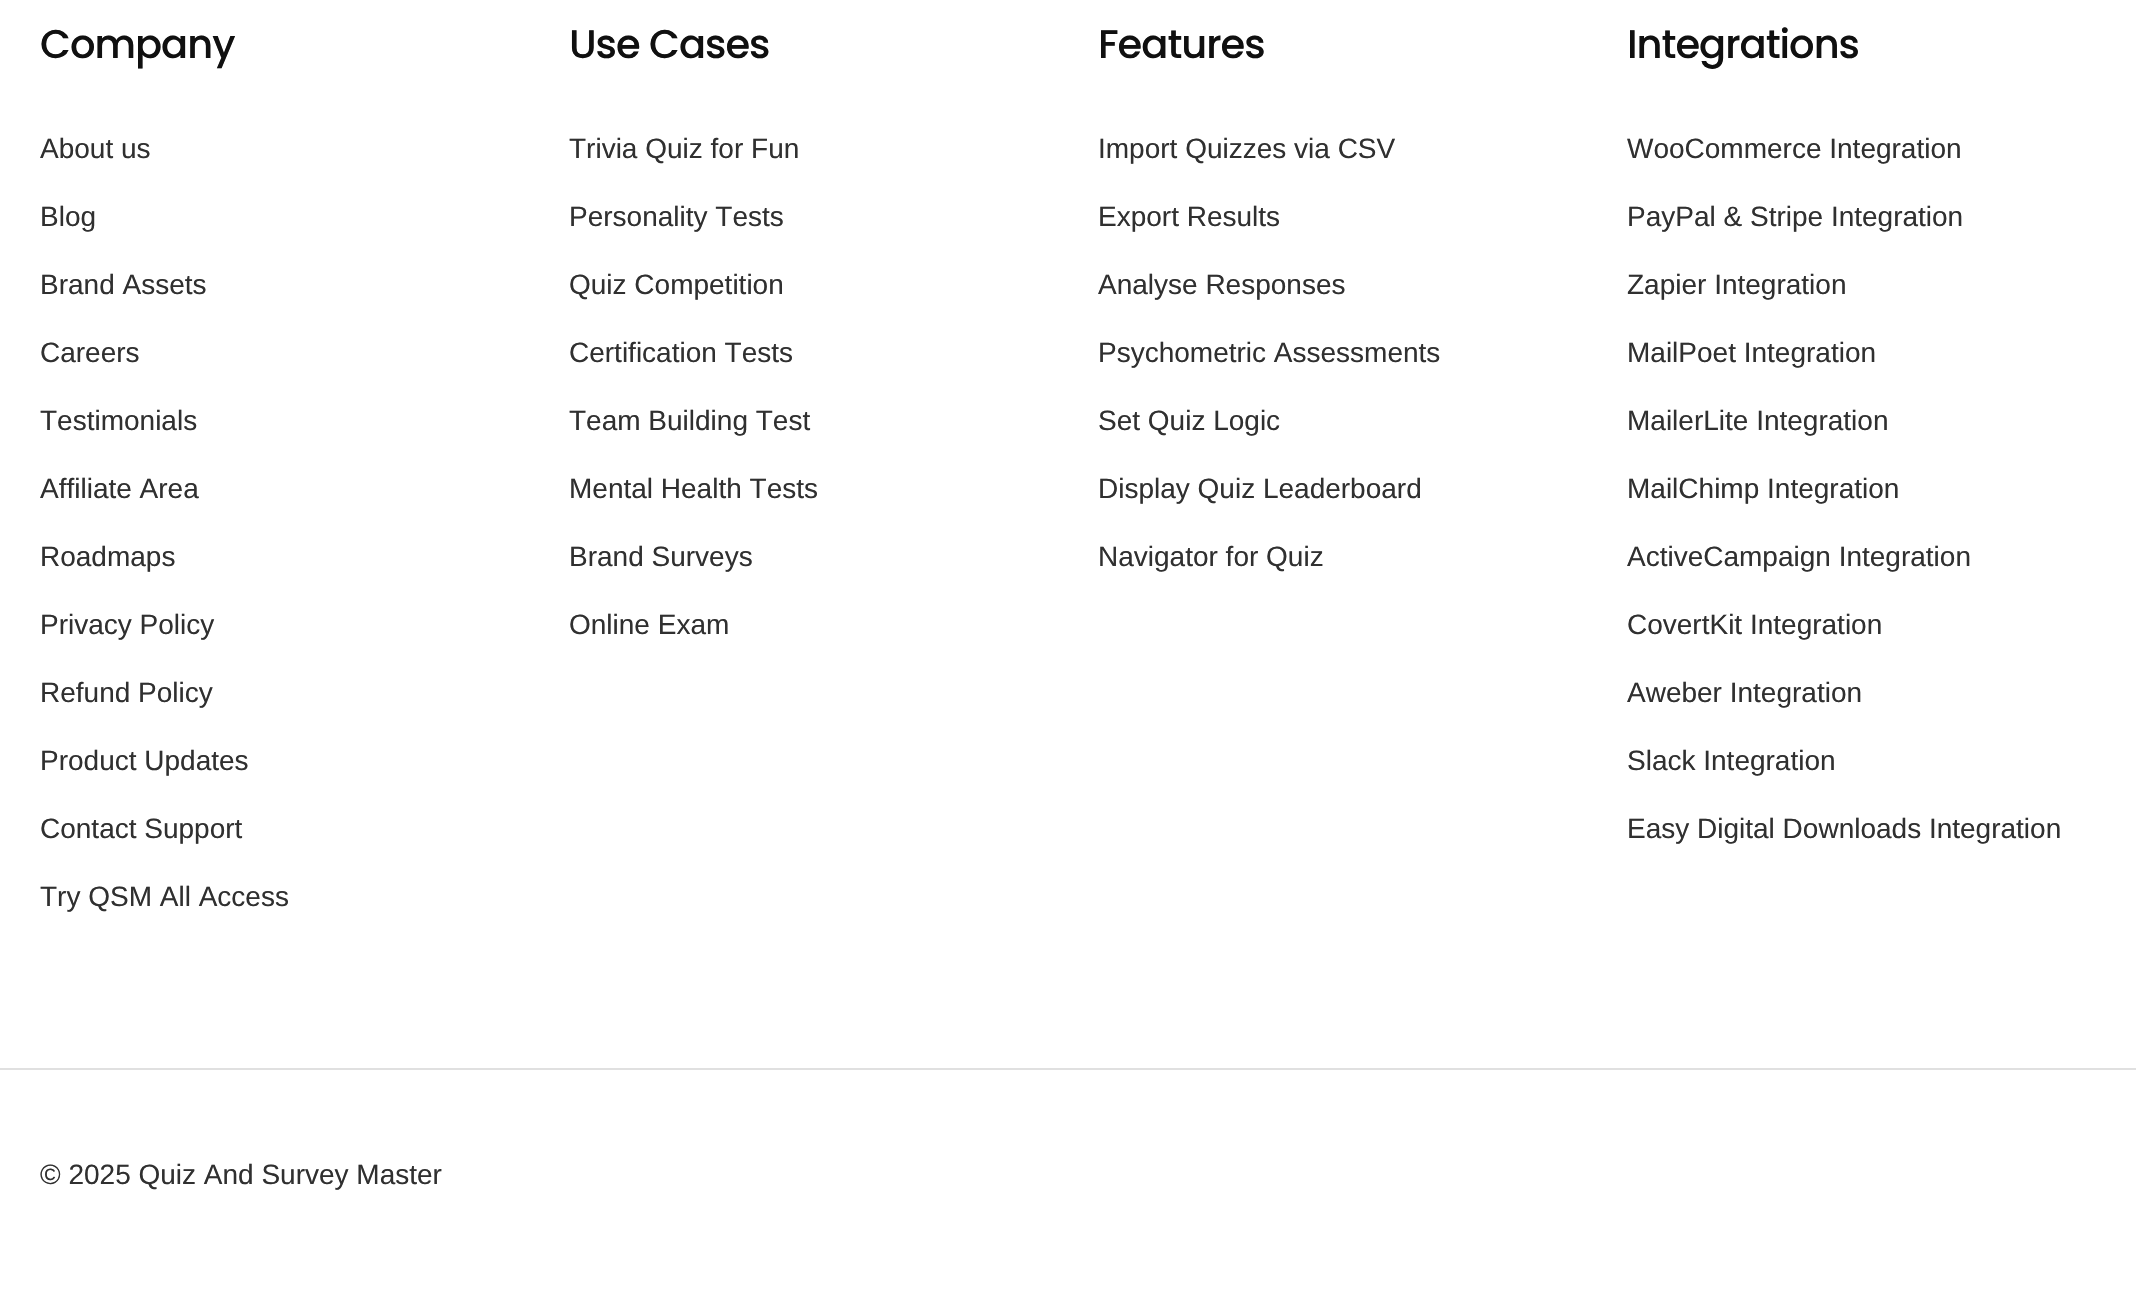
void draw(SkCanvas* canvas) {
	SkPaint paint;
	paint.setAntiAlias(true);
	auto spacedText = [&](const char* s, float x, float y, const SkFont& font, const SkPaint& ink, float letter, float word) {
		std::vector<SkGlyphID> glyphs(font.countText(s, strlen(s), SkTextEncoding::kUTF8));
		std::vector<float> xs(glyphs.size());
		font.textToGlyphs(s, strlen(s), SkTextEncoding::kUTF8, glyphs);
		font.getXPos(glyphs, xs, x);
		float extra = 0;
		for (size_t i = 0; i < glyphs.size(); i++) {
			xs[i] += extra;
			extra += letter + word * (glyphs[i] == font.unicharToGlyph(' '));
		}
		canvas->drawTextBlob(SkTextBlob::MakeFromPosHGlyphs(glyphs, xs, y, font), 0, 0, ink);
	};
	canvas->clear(0xffffffff);
	SkFont f1(fontMgr->matchFamilyStyle("Poppins", SkFontStyle(500, SkFontStyle::kNormal_Width, SkFontStyle::kUpright_Slant)), 40);
	f1.setSubpixel(true);
	paint.setColor(0xff101010);
	spacedText("Company", 40, 58, f1, paint, -1, 0);
	SkFont f2(fontMgr->matchFamilyStyle("Liberation Sans", SkFontStyle::Normal()), 28);
	f2.setSubpixel(true);
	paint.setColor(0xff303030);
	canvas->drawString("About us", 40, 158, f2, paint);
	canvas->drawString("Blog", 40, 226, f2, paint);
	canvas->drawString("Brand Assets", 40, 294, f2, paint);
	canvas->drawString("Careers", 40, 362, f2, paint);
	canvas->drawString("Testimonials", 40, 430, f2, paint);
	canvas->drawString("Affiliate Area", 40, 498, f2, paint);
	canvas->drawString("Roadmaps", 40, 566, f2, paint);
	canvas->drawString("Privacy Policy", 40, 634, f2, paint);
	canvas->drawString("Refund Policy", 40, 702, f2, paint);
	canvas->drawString("Product Updates", 40, 770, f2, paint);
	canvas->drawString("Contact Support", 40, 838, f2, paint);
	canvas->drawString("Try QSM All Access", 40, 906, f2, paint);
	paint.setColor(0xff101010);
	spacedText("Use Cases", 569, 58, f1, paint, -1, 0);
	paint.setColor(0xff303030);
	canvas->drawString("Trivia Quiz for Fun", 569, 158, f2, paint);
	canvas->drawString("Personality Tests", 569, 226, f2, paint);
	canvas->drawString("Quiz Competition", 569, 294, f2, paint);
	canvas->drawString("Certification Tests", 569, 362, f2, paint);
	canvas->drawString("Team Building Test", 569, 430, f2, paint);
	canvas->drawString("Mental Health Tests", 569, 498, f2, paint);
	canvas->drawString("Brand Surveys", 569, 566, f2, paint);
	canvas->drawString("Online Exam", 569, 634, f2, paint);
	paint.setColor(0xff101010);
	spacedText("Features", 1098, 58, f1, paint, -1, 0);
	paint.setColor(0xff303030);
	canvas->drawString("Import Quizzes via CSV", 1098, 158, f2, paint);
	canvas->drawString("Export Results", 1098, 226, f2, paint);
	canvas->drawString("Analyse Responses", 1098, 294, f2, paint);
	canvas->drawString("Psychometric Assessments", 1098, 362, f2, paint);
	canvas->drawString("Set Quiz Logic", 1098, 430, f2, paint);
	canvas->drawString("Display Quiz Leaderboard", 1098, 498, f2, paint);
	canvas->drawString("Navigator for Quiz", 1098, 566, f2, paint);
	paint.setColor(0xff101010);
	spacedText("Integrations", 1627, 58, f1, paint, -1, 0);
	paint.setColor(0xff303030);
	canvas->drawString("WooCommerce Integration", 1627, 158, f2, paint);
	canvas->drawString("PayPal & Stripe Integration", 1627, 226, f2, paint);
	canvas->drawString("Zapier Integration", 1627, 294, f2, paint);
	canvas->drawString("MailPoet Integration", 1627, 362, f2, paint);
	canvas->drawString("MailerLite Integration", 1627, 430, f2, paint);
	canvas->drawString("MailChimp Integration", 1627, 498, f2, paint);
	canvas->drawString("ActiveCampaign Integration", 1627, 566, f2, paint);
	canvas->drawString("CovertKit Integration", 1627, 634, f2, paint);
	canvas->drawString("Aweber Integration", 1627, 702, f2, paint);
	canvas->drawString("Slack Integration", 1627, 770, f2, paint);
	canvas->drawString("Easy Digital Downloads Integration", 1627, 838, f2, paint);
	paint.setColor(0xffe0e0e0);
	canvas->drawRect(SkRect::MakeXYWH(0, 1068, 2136, 2), paint);
	paint.setColor(0xff303030);
	canvas->drawString("© 2025 Quiz And Survey Master", 40, 1184, f2, paint);
}
